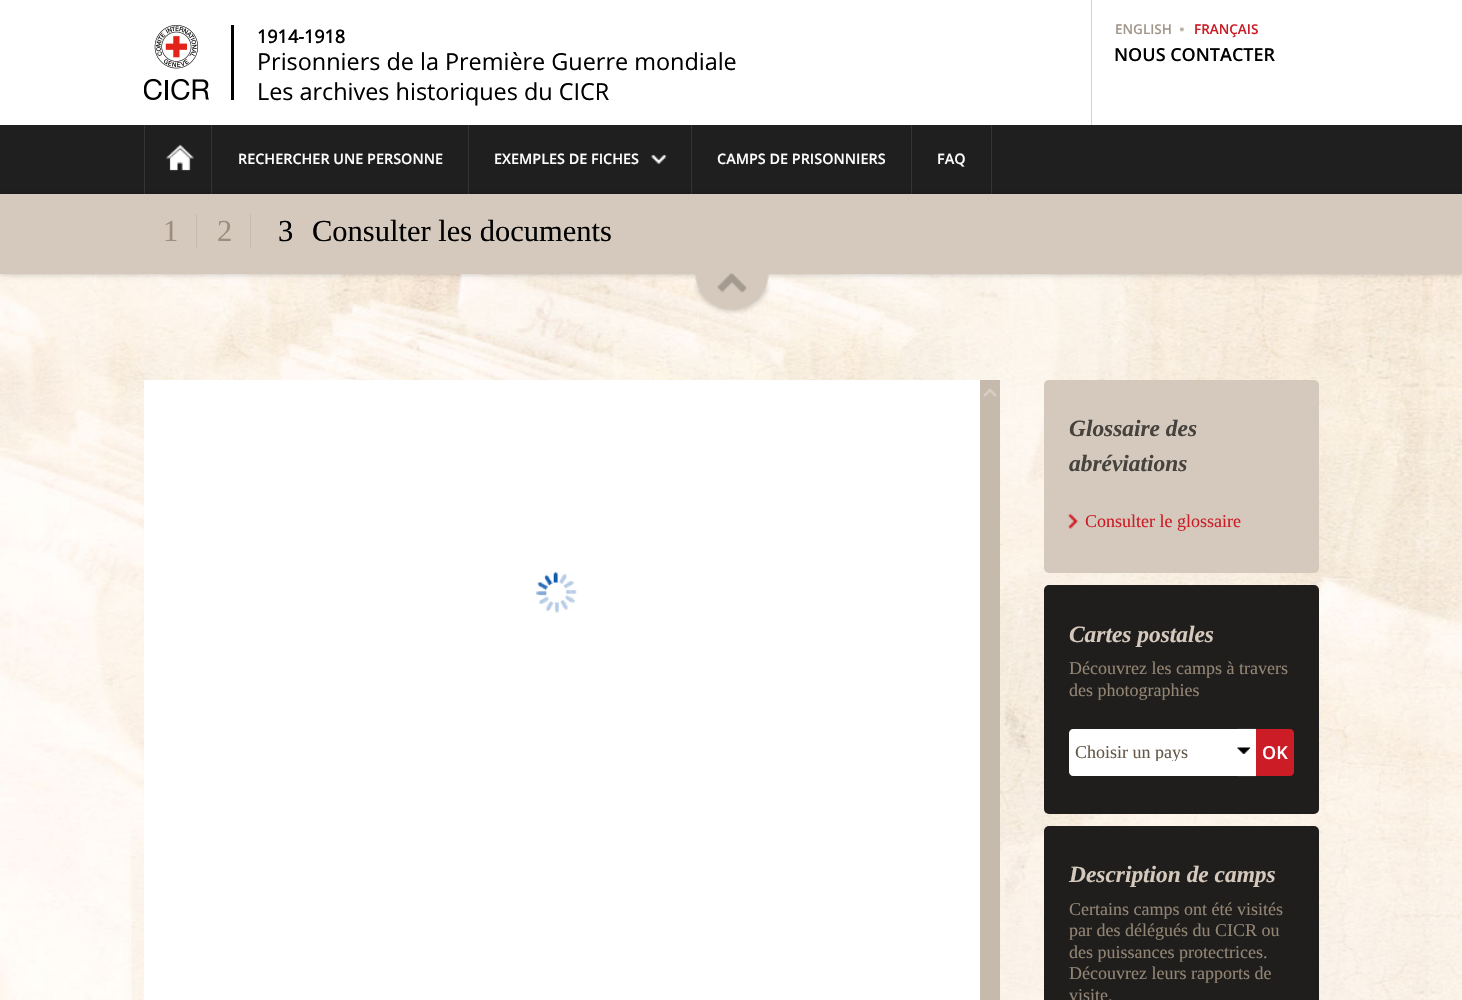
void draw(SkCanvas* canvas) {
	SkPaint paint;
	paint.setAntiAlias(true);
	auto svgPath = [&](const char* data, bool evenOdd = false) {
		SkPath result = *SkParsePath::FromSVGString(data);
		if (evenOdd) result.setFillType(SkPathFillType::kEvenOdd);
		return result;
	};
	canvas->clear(0xffffffff);
	canvas->drawImageRect(SkImages::DeferredFromEncodedData(SkData::MakeFromFileName("img1.png")), SkRect::MakeXYWH(144, 25, 65, 75), SkSamplingOptions());
	paint.setColor(0xff000000);
	canvas->drawRect(SkRect::MakeXYWH(231, 25, 3, 75), paint);
	SkFont f1(fontMgr->matchFamilyStyle("Open Sans", SkFontStyle::Bold()), 18);
	f1.setSubpixel(true);
	canvas->drawString("1914-1918", 257, 43, f1, paint);
	SkFont f2(fontMgr->matchFamilyStyle("Open Sans", SkFontStyle::Normal()), 23.4);
	f2.setSubpixel(true);
	canvas->drawString("Prisonniers de la Première Guerre mondiale", 257, 70, f2, paint);
	canvas->drawString("Les archives historiques du CICR", 257, 100, f2, paint);
	paint.setColor(0xffd5d1cc);
	canvas->drawRect(SkRect::MakeXYWH(1091, 0, 1, 125), paint);
	SkFont f3(fontMgr->matchFamilyStyle("Open Sans", SkFontStyle(600, SkFontStyle::kNormal_Width, SkFontStyle::kUpright_Slant)), 13.5);
	f3.setSubpixel(true);
	paint.setColor(0xffa1978a);
	canvas->drawString("ENGLISH", 1115, 34, f3, paint);
	canvas->drawImageRect(SkImages::DeferredFromEncodedData(SkData::MakeFromFileName("img2.png")), SkRect::MakeXYWH(1180, 27, 4, 5), SkSamplingOptions());
	paint.setColor(0xffcc1c26);
	canvas->drawString("FRANÇAIS", 1194, 34, f3, paint);
	SkFont f4(fontMgr->matchFamilyStyle("Open Sans", SkFontStyle(600, SkFontStyle::kNormal_Width, SkFontStyle::kUpright_Slant)), 18);
	f4.setSubpixel(true);
	paint.setColor(0xff000000);
	canvas->drawString("NOUS CONTACTER", 1114, 61, f4, paint);
	paint.setColor(0xff1f1f1f);
	canvas->drawRect(SkRect::MakeXYWH(0, 125, 1462, 69), paint);
	paint.setColor(0xff363534);
	canvas->drawRect(SkRect::MakeXYWH(211, 125, 1, 69), paint);
	canvas->drawRect(SkRect::MakeXYWH(144, 125, 1, 69), paint);
	canvas->drawImageRect(SkImages::DeferredFromEncodedData(SkData::MakeFromFileName("img3.png")), SkRect::MakeXYWH(166, 144, 28, 27), SkSamplingOptions());
	canvas->drawRect(SkRect::MakeXYWH(468, 125, 1, 69), paint);
	SkFont f5(fontMgr->matchFamilyStyle("Open Sans", SkFontStyle(600, SkFontStyle::kNormal_Width, SkFontStyle::kUpright_Slant)), 14.4);
	f5.setSubpixel(true);
	paint.setColor(0xffffffff);
	canvas->drawString("RECHERCHER UNE PERSONNE", 238, 164, f5, paint);
	paint.setColor(0xff363534);
	canvas->drawRect(SkRect::MakeXYWH(691, 125, 1, 69), paint);
	paint.setColor(0xffffffff);
	canvas->drawString("EXEMPLES DE FICHES", 494, 164, f5, paint);
	canvas->drawImageRect(SkImages::DeferredFromEncodedData(SkData::MakeFromFileName("img4.png")), SkRect::MakeXYWH(651, 155, 16, 9), SkSamplingOptions());
	paint.setColor(0xff363534);
	canvas->drawRect(SkRect::MakeXYWH(911, 125, 1, 69), paint);
	paint.setColor(0xffffffff);
	canvas->drawString("CAMPS DE PRISONNIERS", 717, 164, f5, paint);
	paint.setColor(0xff363534);
	canvas->drawRect(SkRect::MakeXYWH(991, 125, 1, 69), paint);
	paint.setColor(0xffffffff);
	canvas->drawString("FAQ", 937, 164, f5, paint);
	canvas->drawImageRect(SkImages::DeferredFromEncodedData(SkData::MakeFromFileName("img7.png")), SkRect::MakeXYWH(0, 274, 1462, 726), SkSamplingOptions());
	paint.setColor(0x40000000);
	paint.setMaskFilter(SkMaskFilter::MakeBlur(kNormal_SkBlurStyle, 3));
	canvas->drawRect(SkRect::MakeXYWH(0, 194, 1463, 80), paint);
	paint.setMaskFilter(nullptr);
	paint.setColor(0xffd4c9bc);
	canvas->drawRect(SkRect::MakeXYWH(0, 194, 1462, 80), paint);
	SkFont f6(fontMgr->matchFamilyStyle("Liberation Serif", SkFontStyle::Normal()), 30.5);
	f6.setSubpixel(true);
	paint.setColor(0xff9e8d7d);
	canvas->drawString("1", 163, 241, f6, paint);
	paint.setColor(0xffc3bcb4);
	canvas->drawRect(SkRect::MakeXYWH(196, 214, 1, 34), paint);
	paint.setColor(0xff9e8d7d);
	canvas->drawString("2", 217, 241, f6, paint);
	paint.setColor(0xffc3bcb4);
	canvas->drawRect(SkRect::MakeXYWH(250, 214, 1, 34), paint);
	paint.setColor(0xff000000);
	canvas->drawString("3", 278, 241, f6, paint);
	canvas->drawString("Consulter les documents", 312, 241, f6, paint);
	canvas->drawImageRect(SkImages::DeferredFromEncodedData(SkData::MakeFromFileName("img5.png")), SkRect::MakeXYWH(694, 274, 76, 40), SkSamplingOptions());
	canvas->drawImageRect(SkImages::DeferredFromEncodedData(SkData::MakeFromFileName("img6.png")), SkRect::MakeXYWH(717, 273, 30, 20), SkSamplingOptions());
	paint.setColor(0xffffffff);
	canvas->drawRect(SkRect::MakeXYWH(144, 380, 836, 620), paint);
	canvas->drawImageRect(SkImages::DeferredFromEncodedData(SkData::MakeFromFileName("img8.png")), SkRect::MakeXYWH(536, 572, 41, 41), SkSamplingOptions());
	paint.setColor(0xffc5baac);
	canvas->drawRect(SkRect::MakeXYWH(980, 380, 20, 620), paint);
	canvas->drawImageRect(SkImages::DeferredFromEncodedData(SkData::MakeFromFileName("img9.png")), SkRect::MakeXYWH(983, 388, 14, 9), SkSamplingOptions());
	paint.setColor(0xffd4c9bc);
	canvas->drawRoundRect(SkRect::MakeXYWH(1044, 380, 275, 193), 5, 5, paint);
	SkFont f7(fontMgr->matchFamilyStyle("Liberation Serif", SkFontStyle::BoldItalic()), 23.4);
	f7.setSubpixel(true);
	paint.setColor(0xff46423e);
	canvas->drawString("Glossaire des", 1069, 436, f7, paint);
	canvas->drawString("abréviations", 1069, 471, f7, paint);
	canvas->drawImageRect(SkImages::DeferredFromEncodedData(SkData::MakeFromFileName("img10.png")), SkRect::MakeXYWH(1068, 513, 10, 16), SkSamplingOptions());
	SkFont f8(fontMgr->matchFamilyStyle("Liberation Serif", SkFontStyle::Normal()), 18);
	f8.setSubpixel(true);
	paint.setColor(0xffcc1c26);
	canvas->drawString("Consulter le glossaire", 1085, 527, f8, paint);
	paint.setColor(0xff1f1e1d);
	canvas->drawRoundRect(SkRect::MakeXYWH(1044, 585, 275, 229), 5, 5, paint);
	paint.setColor(0xffd4c9bc);
	canvas->drawString("Cartes postales", 1069, 642, f7, paint);
	paint.setColor(0xff938573);
	canvas->drawString("Découvrez les camps à travers", 1069, 674, f8, paint);
	canvas->drawString("des photographies", 1069, 696, f8, paint);
	paint.setColor(0xffffffff);
	canvas->drawPath(svgPath("M1073 729H1256V776H1073C1071 776 1069 774 1069 772V733C1069 731 1071 729 1073 729Z"), paint);
	canvas->drawImageRect(SkImages::DeferredFromEncodedData(SkData::MakeFromFileName("img11.png")), SkRect::MakeXYWH(1237, 728, 19, 49), SkSamplingOptions());
	canvas->save();
	canvas->clipRect(SkRect::MakeXYWH(1075, 741, 163, 20));
	paint.setColor(0xff635747);
	canvas->drawString("Choisir un pays", 1075, 758, f8, paint);
	canvas->restore();
	paint.setColor(0xffcc1c26);
	canvas->drawPath(svgPath("M1256 729H1290C1292 729 1294 731 1294 733V772C1294 774 1292 776 1290 776H1256Z"), paint);
	paint.setColor(0xffffffff);
	canvas->drawString("OK", 1262, 759, f4, paint);
	paint.setColor(0xff1f1e1d);
	canvas->drawRoundRect(SkRect::MakeXYWH(1044, 826, 275, 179), 5, 5, paint);
	paint.setColor(0xffd4c9bc);
	canvas->drawString("Description de camps", 1069, 882, f7, paint);
	paint.setColor(0xff938573);
	canvas->drawString("Certains camps ont été visités", 1069, 915, f8, paint);
	canvas->drawString("par des délégués du CICR ou", 1069, 936, f8, paint);
	canvas->drawString("des puissances protectrices.", 1069, 958, f8, paint);
	canvas->drawString("Découvrez leurs rapports de", 1069, 979, f8, paint);
	canvas->drawString("visite.", 1069, 1001, f8, paint);
}
